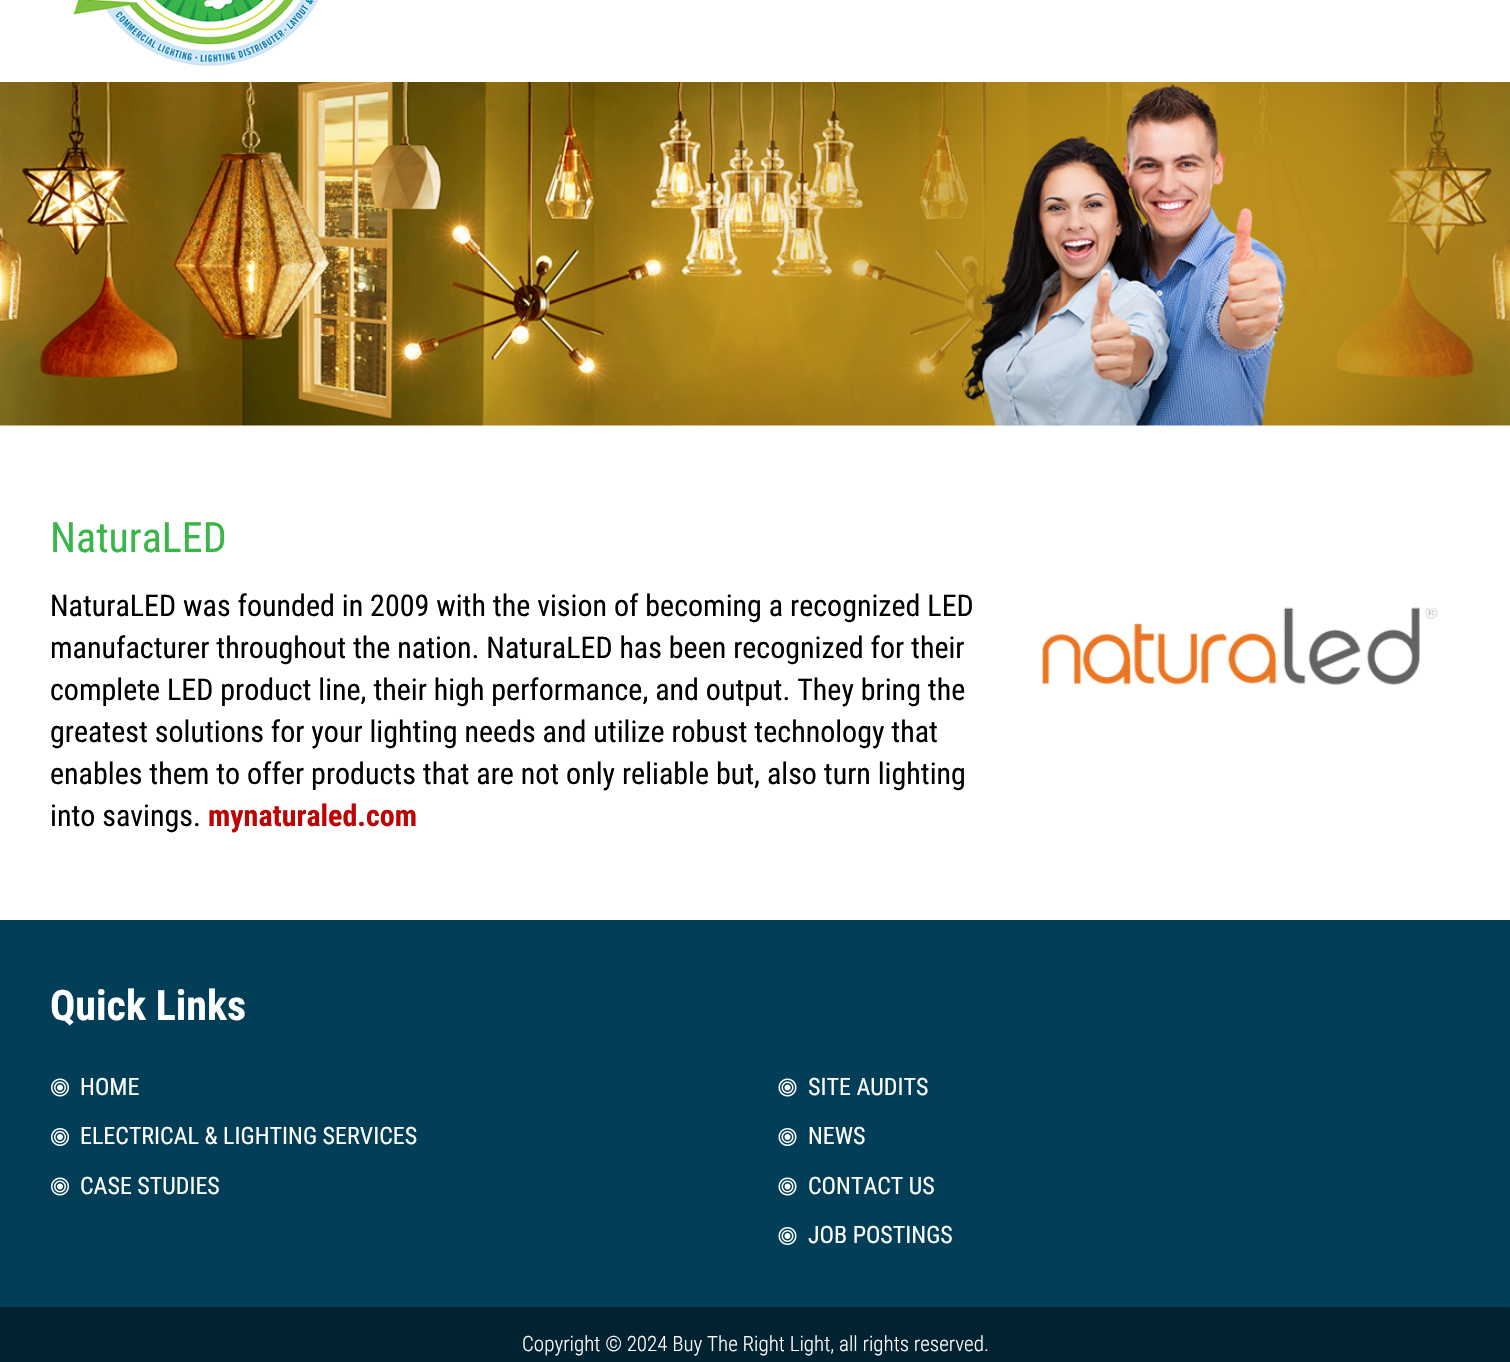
void draw(SkCanvas* canvas) {
	SkPaint paint;
	paint.setAntiAlias(true);
	canvas->clear(0xffffffff);
	canvas->drawImageRect(SkImages::DeferredFromEncodedData(SkData::MakeFromFileName("img1.png")), SkRect::MakeXYWH(73, 0, 245, 66), SkSamplingOptions());
	canvas->drawImageRect(SkImages::DeferredFromEncodedData(SkData::MakeFromFileName("img2.png")), SkRect::MakeXYWH(0, 82, 1510, 344), SkSamplingOptions());
	SkFont f1(fontMgr->matchFamilyStyle("Roboto Condensed", SkFontStyle::Normal()), 42);
	f1.setSubpixel(true);
	paint.setColor(0xff39b54a);
	canvas->drawString("NaturaLED", 50, 552, f1, paint);
	SkFont f2(fontMgr->matchFamilyStyle("Roboto Condensed", SkFontStyle::Normal()), 30);
	f2.setSubpixel(true);
	paint.setColor(0xff000000);
	canvas->drawString("NaturaLED was founded in 2009 with the vision of becoming a recognized LED", 50, 616, f2, paint);
	canvas->drawString("manufacturer throughout the nation. NaturaLED has been recognized for their", 50, 658, f2, paint);
	canvas->drawString("complete LED product line, their high performance, and output. They bring the", 50, 700, f2, paint);
	canvas->drawString("greatest solutions for your lighting needs and utilize robust technology that", 50, 742, f2, paint);
	canvas->drawString("enables them to offer products that are not only reliable but, also turn lighting", 50, 784, f2, paint);
	canvas->drawString("into savings.", 50, 826, f2, paint);
	SkFont f3(fontMgr->matchFamilyStyle("Roboto Condensed", SkFontStyle::Bold()), 30);
	f3.setSubpixel(true);
	paint.setColor(0xffbd0505);
	canvas->drawString("mynaturaled.com", 208, 826, f3, paint);
	canvas->drawImageRect(SkImages::DeferredFromEncodedData(SkData::MakeFromFileName("img3.png")), SkRect::MakeXYWH(1041, 607, 397, 78), SkSamplingOptions());
	paint.setColor(0xff023e58);
	canvas->drawRect(SkRect::MakeXYWH(0, 920, 1510, 387), paint);
	SkFont f4(fontMgr->matchFamilyStyle("Roboto Condensed", SkFontStyle::Bold()), 42);
	f4.setSubpixel(true);
	paint.setColor(0xffffffff);
	canvas->drawString("Quick Links", 50, 1020, f4, paint);
	canvas->drawImageRect(SkImages::DeferredFromEncodedData(SkData::MakeFromFileName("img4.png")), SkRect::MakeXYWH(51, 1078, 18, 19), SkSamplingOptions());
	SkFont f5(fontMgr->matchFamilyStyle("Roboto Condensed", SkFontStyle::Normal()), 24);
	f5.setSubpixel(true);
	canvas->drawString("HOME", 80, 1095, f5, paint);
	canvas->drawImageRect(SkImages::DeferredFromEncodedData(SkData::MakeFromFileName("img5.png")), SkRect::MakeXYWH(51, 1128, 18, 18), SkSamplingOptions());
	canvas->drawString("ELECTRICAL & LIGHTING SERVICES", 80, 1144, f5, paint);
	canvas->drawImageRect(SkImages::DeferredFromEncodedData(SkData::MakeFromFileName("img4.png")), SkRect::MakeXYWH(51, 1177, 18, 19), SkSamplingOptions());
	canvas->drawString("CASE STUDIES", 80, 1194, f5, paint);
	canvas->drawImageRect(SkImages::DeferredFromEncodedData(SkData::MakeFromFileName("img6.png")), SkRect::MakeXYWH(778, 1078, 19, 19), SkSamplingOptions());
	canvas->drawString("SITE AUDITS", 808, 1095, f5, paint);
	canvas->drawImageRect(SkImages::DeferredFromEncodedData(SkData::MakeFromFileName("img7.png")), SkRect::MakeXYWH(778, 1128, 19, 18), SkSamplingOptions());
	canvas->drawString("NEWS", 808, 1144, f5, paint);
	canvas->drawImageRect(SkImages::DeferredFromEncodedData(SkData::MakeFromFileName("img6.png")), SkRect::MakeXYWH(778, 1177, 19, 19), SkSamplingOptions());
	canvas->drawString("CONTACT US", 808, 1194, f5, paint);
	canvas->drawImageRect(SkImages::DeferredFromEncodedData(SkData::MakeFromFileName("img7.png")), SkRect::MakeXYWH(778, 1227, 19, 18), SkSamplingOptions());
	canvas->drawString("JOB POSTINGS", 808, 1243, f5, paint);
	paint.setColor(0xff002231);
	canvas->drawRect(SkRect::MakeXYWH(0, 1307, 1510, 55), paint);
	SkFont f6(fontMgr->matchFamilyStyle("Roboto Condensed", SkFontStyle(300, SkFontStyle::kNormal_Width, SkFontStyle::kUpright_Slant)), 21);
	f6.setSubpixel(true);
	paint.setColor(0xffffffff);
	canvas->drawString("Copyright © 2024 Buy The Right Light, all rights reserved.", 522, 1351, f6, paint);
}
